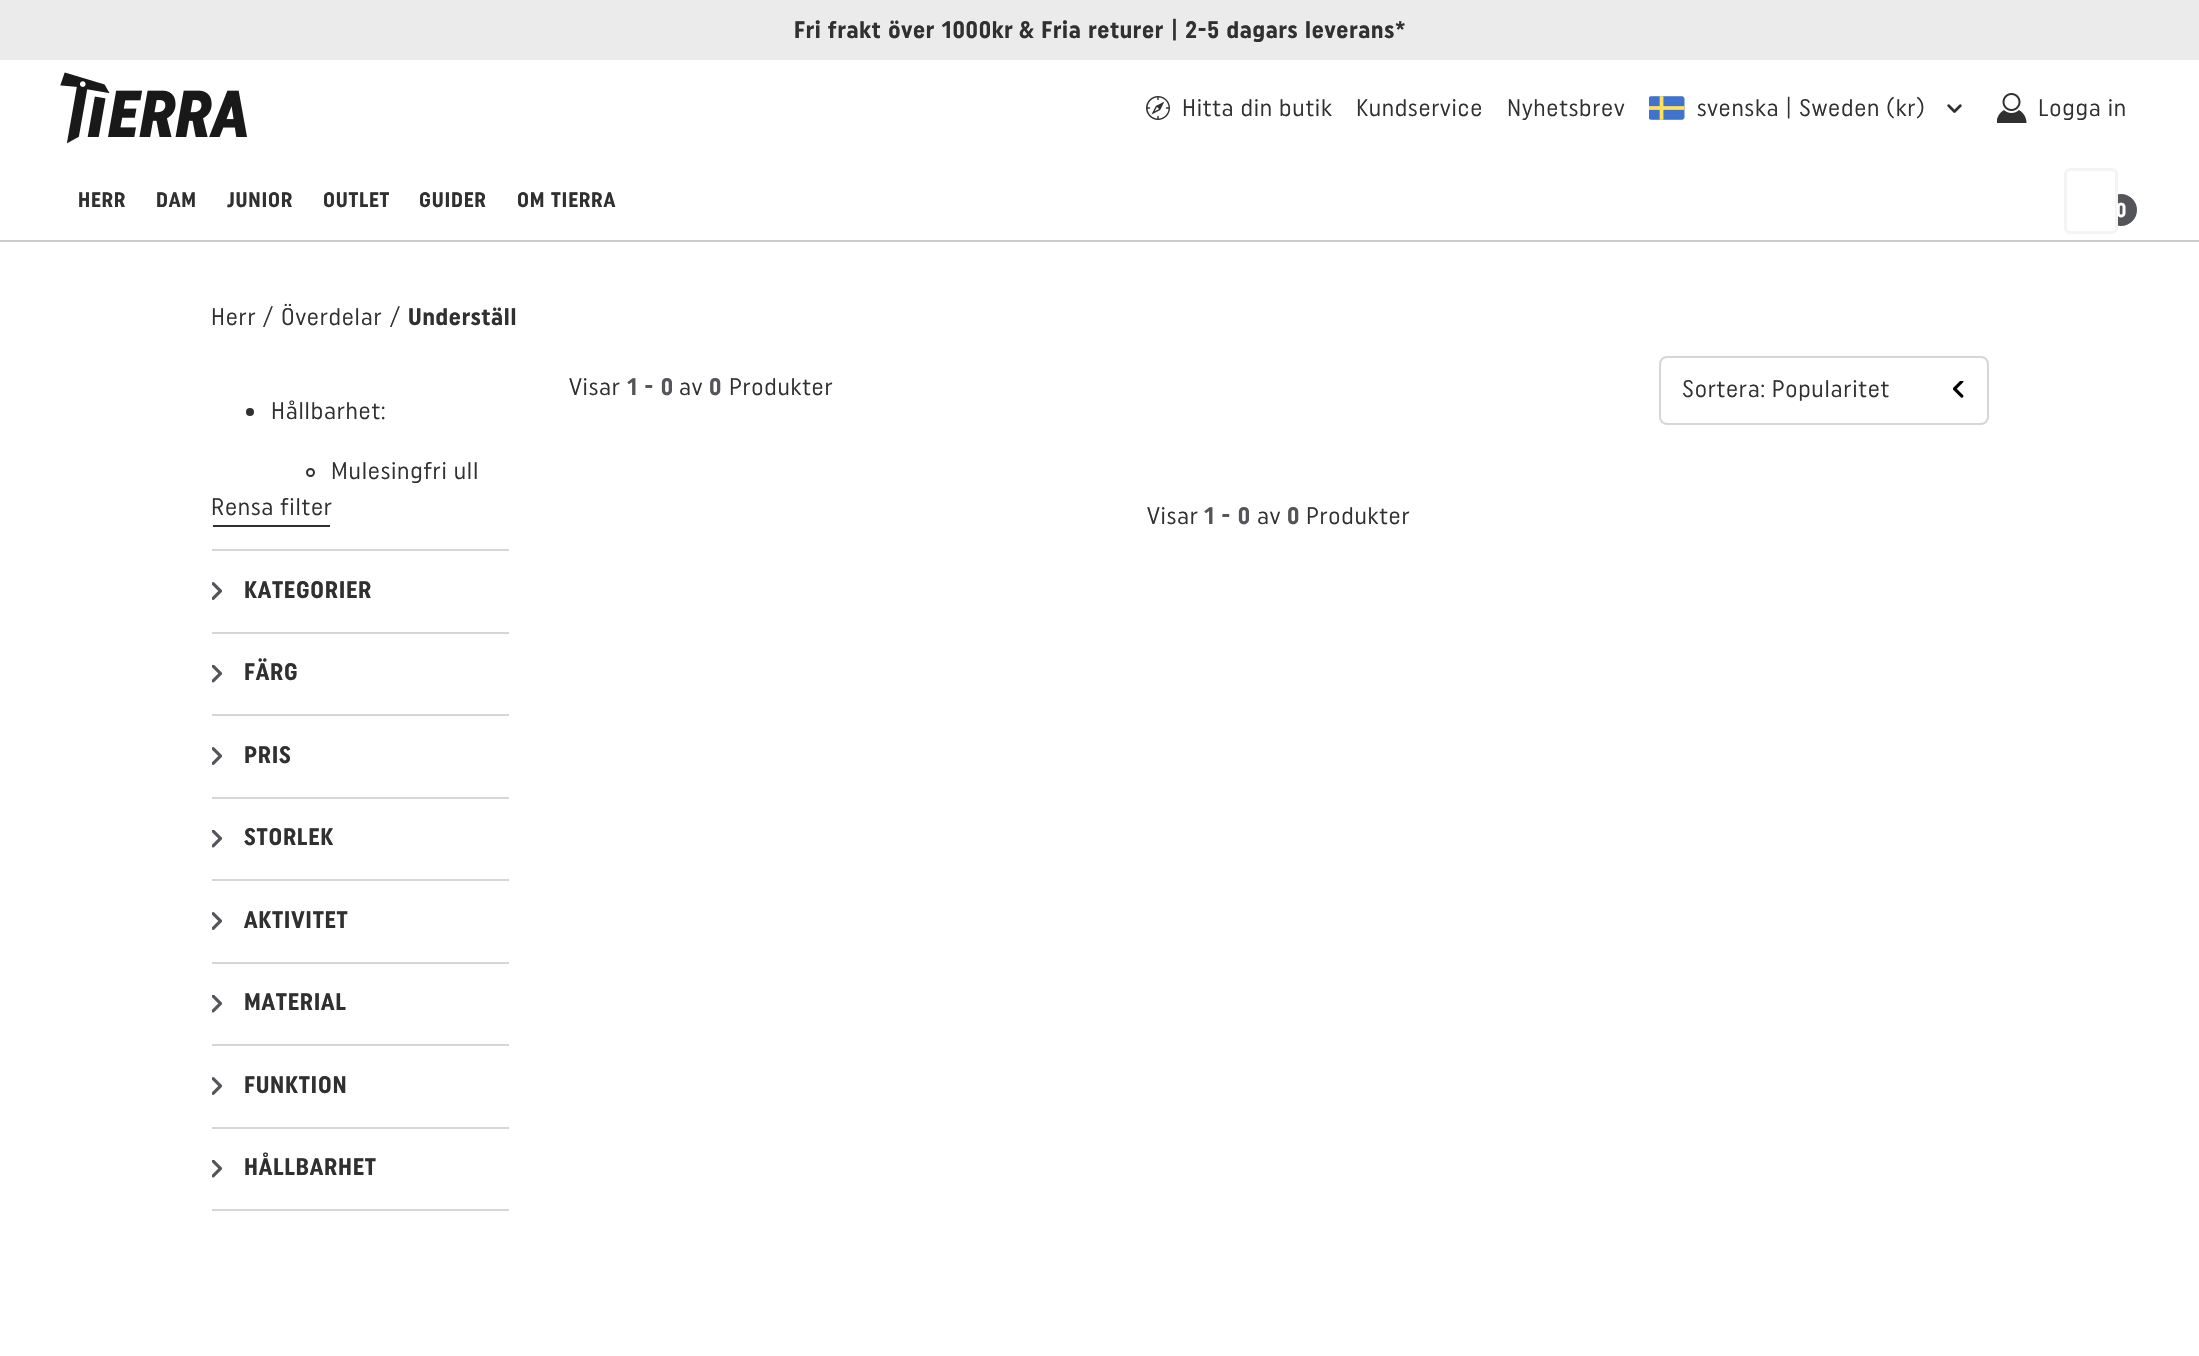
void draw(SkCanvas* canvas) {
	SkPaint paint;
	paint.setAntiAlias(true);
	auto spacedText = [&](const char* s, float x, float y, const SkFont& font, const SkPaint& ink, float letter, float word) {
		std::vector<SkGlyphID> glyphs(font.countText(s, strlen(s), SkTextEncoding::kUTF8));
		std::vector<float> xs(glyphs.size());
		font.textToGlyphs(s, strlen(s), SkTextEncoding::kUTF8, glyphs);
		font.getXPos(glyphs, xs, x);
		float extra = 0;
		for (size_t i = 0; i < glyphs.size(); i++) {
			xs[i] += extra;
			extra += letter + word * (glyphs[i] == font.unicharToGlyph(' '));
		}
		canvas->drawTextBlob(SkTextBlob::MakeFromPosHGlyphs(glyphs, xs, y, font), 0, 0, ink);
	};
	canvas->clear(0xffffffff);
	paint.setColor(0xffebebeb);
	canvas->drawRect(SkRect::MakeXYWH(0, 0, 2199, 60), paint);
	SkFont f1(fontMgr->matchFamilyStyle("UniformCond", SkFontStyle::Bold()), 24);
	f1.setSubpixel(true);
	paint.setColor(0xff303030);
	spacedText("Fri frakt över 1000kr", 794, 38, f1, paint, 0.75, 0);
	spacedText("& Fria returer", 1019, 38, f1, paint, 0.75, 0);
	spacedText("| 2-5 dagars leverans*", 1171, 38, f1, paint, 0.75, 0);
	paint.setColor(0xffcccccc);
	canvas->drawRect(SkRect::MakeXYWH(0, 240, 2199, 2), paint);
	canvas->drawImageRect(SkImages::DeferredFromEncodedData(SkData::MakeFromFileName("img1.png")), SkRect::MakeXYWH(60, 72, 187, 72), SkSamplingOptions());
	canvas->drawImageRect(SkImages::DeferredFromEncodedData(SkData::MakeFromFileName("img2.png")), SkRect::MakeXYWH(1146, 96, 24, 24), SkSamplingOptions());
	SkFont f2(fontMgr->matchFamilyStyle("UniformCond", SkFontStyle::Normal()), 24);
	f2.setSubpixel(true);
	paint.setColor(0xff303030);
	spacedText("Hitta din butik", 1182, 116, f2, paint, 0.75, 0);
	spacedText("Kundservice", 1356, 116, f2, paint, 0.75, 0);
	spacedText("Nyhetsbrev", 1507, 116, f2, paint, 0.75, 0);
	canvas->drawImageRect(SkImages::DeferredFromEncodedData(SkData::MakeFromFileName("img3.png")), SkRect::MakeXYWH(1649, 96, 36, 24), SkSamplingOptions());
	spacedText("svenska | Sweden (kr)", 1697, 116, f2, paint, 0.75, 0);
	canvas->drawImageRect(SkImages::DeferredFromEncodedData(SkData::MakeFromFileName("img4.png")), SkRect::MakeXYWH(1947, 104, 15, 9), SkSamplingOptions());
	canvas->drawImageRect(SkImages::DeferredFromEncodedData(SkData::MakeFromFileName("img5.png")), SkRect::MakeXYWH(1997, 93, 30, 30), SkSamplingOptions());
	spacedText("Logga in", 2038, 116, f2, paint, 0.75, 0);
	SkFont f3(fontMgr->matchFamilyStyle("UniformCond", SkFontStyle::Bold()), 21);
	f3.setSubpixel(true);
	spacedText("HERR", 78, 207, f3, paint, 0.75, 0);
	spacedText("DAM", 156, 207, f3, paint, 0.75, 0);
	spacedText("JUNIOR", 227, 207, f3, paint, 0.75, 0);
	spacedText("OUTLET", 323, 207, f3, paint, 0.75, 0);
	spacedText("GUIDER", 419, 207, f3, paint, 0.75, 0);
	spacedText("OM TIERRA", 517, 207, f3, paint, 0.75, 0);
	paint.setColor(0xff54555a);
	canvas->drawCircle(2121, 210, 17, paint);
	paint.setStroke(true);
	paint.setStrokeWidth(2);
	paint.setColor(0xffffffff);
	canvas->drawCircle(2121, 210, 17, paint);
	paint.setStroke(false);
	canvas->drawRoundRect(SkRect::MakeXYWH(2065.5, 169.5, 51, 63), 4.5, 4.5, paint);
	paint.setStroke(true);
	paint.setStrokeWidth(3);
	paint.setColor(0xfff4f4f4);
	canvas->drawRoundRect(SkRect::MakeXYWH(2065.5, 169.5, 51, 63), 4.5, 4.5, paint);
	SkFont f4(fontMgr->matchFamilyStyle("UniformCond", SkFontStyle::Bold()), 20);
	f4.setSubpixel(true);
	paint.setStroke(false);
	paint.setColor(0xffffffff);
	spacedText("0", 2116, 217, f4, paint, 0.75, 0);
	paint.setColor(0xff303030);
	spacedText("Herr", 211, 325, f2, paint, 0.75, 0);
	spacedText("/", 263, 325, f2, paint, 0.75, 0);
	spacedText("Överdelar", 281, 325, f2, paint, 0.75, 0);
	spacedText("/", 390, 325, f2, paint, 0.75, 0);
	spacedText("Underställ", 408, 325, f1, paint, 0.75, 0);
	paint.setColor(0xffd6d6d6);
	canvas->drawRect(SkRect::MakeXYWH(212, 549, 297, 2), paint);
	paint.setColor(0xff303030);
	canvas->drawCircle(250, 412, 4, paint);
	spacedText("Hållbarhet:", 271, 419, f2, paint, 0.75, 0);
	paint.setStroke(true);
	paint.setStrokeWidth(2);
	canvas->drawCircle(310.5, 472.5, 3.5, paint);
	paint.setStroke(false);
	spacedText("Mulesingfri ull", 331, 479, f2, paint, 0.75, 0);
	spacedText("Rensa filter", 211, 515, f2, paint, 0.75, 0);
	canvas->drawRect(SkRect::MakeXYWH(213, 525, 117, 2), paint);
	paint.setColor(0xffd6d6d6);
	canvas->drawRect(SkRect::MakeXYWH(212, 632, 297, 2), paint);
	canvas->drawImageRect(SkImages::DeferredFromEncodedData(SkData::MakeFromFileName("img6.png")), SkRect::MakeXYWH(212, 582, 10, 18), SkSamplingOptions());
	paint.setColor(0xff303030);
	spacedText("KATEGORIER", 244, 598, f1, paint, 0.75, 0);
	paint.setColor(0xffd6d6d6);
	canvas->drawRect(SkRect::MakeXYWH(212, 714, 297, 2), paint);
	canvas->drawImageRect(SkImages::DeferredFromEncodedData(SkData::MakeFromFileName("img7.png")), SkRect::MakeXYWH(212, 665, 10, 18), SkSamplingOptions());
	paint.setColor(0xff303030);
	spacedText("FÄRG", 244, 680, f1, paint, 0.75, 0);
	paint.setColor(0xffd6d6d6);
	canvas->drawRect(SkRect::MakeXYWH(212, 797, 297, 2), paint);
	canvas->drawImageRect(SkImages::DeferredFromEncodedData(SkData::MakeFromFileName("img6.png")), SkRect::MakeXYWH(212, 747, 10, 18), SkSamplingOptions());
	paint.setColor(0xff303030);
	spacedText("PRIS", 244, 763, f1, paint, 0.75, 0);
	paint.setColor(0xffd6d6d6);
	canvas->drawRect(SkRect::MakeXYWH(212, 879, 297, 2), paint);
	canvas->drawImageRect(SkImages::DeferredFromEncodedData(SkData::MakeFromFileName("img7.png")), SkRect::MakeXYWH(212, 830, 10, 18), SkSamplingOptions());
	paint.setColor(0xff303030);
	spacedText("STORLEK", 244, 845, f1, paint, 0.75, 0);
	paint.setColor(0xffd6d6d6);
	canvas->drawRect(SkRect::MakeXYWH(212, 962, 297, 2), paint);
	canvas->drawImageRect(SkImages::DeferredFromEncodedData(SkData::MakeFromFileName("img6.png")), SkRect::MakeXYWH(212, 912, 10, 18), SkSamplingOptions());
	paint.setColor(0xff303030);
	spacedText("AKTIVITET", 244, 928, f1, paint, 0.75, 0);
	paint.setColor(0xffd6d6d6);
	canvas->drawRect(SkRect::MakeXYWH(212, 1044, 297, 2), paint);
	canvas->drawImageRect(SkImages::DeferredFromEncodedData(SkData::MakeFromFileName("img7.png")), SkRect::MakeXYWH(212, 995, 10, 18), SkSamplingOptions());
	paint.setColor(0xff303030);
	spacedText("MATERIAL", 244, 1010, f1, paint, 0.75, 0);
	paint.setColor(0xffd6d6d6);
	canvas->drawRect(SkRect::MakeXYWH(212, 1127, 297, 2), paint);
	canvas->drawImageRect(SkImages::DeferredFromEncodedData(SkData::MakeFromFileName("img6.png")), SkRect::MakeXYWH(212, 1077, 10, 18), SkSamplingOptions());
	paint.setColor(0xff303030);
	spacedText("FUNKTION", 244, 1093, f1, paint, 0.75, 0);
	paint.setColor(0xffd6d6d6);
	canvas->drawRect(SkRect::MakeXYWH(212, 1209, 297, 2), paint);
	canvas->drawImageRect(SkImages::DeferredFromEncodedData(SkData::MakeFromFileName("img7.png")), SkRect::MakeXYWH(212, 1160, 10, 18), SkSamplingOptions());
	paint.setColor(0xff303030);
	spacedText("HÅLLBARHET", 244, 1175, f1, paint, 0.75, 0);
	spacedText("Visar", 569, 395, f2, paint, 0.75, 0);
	paint.setColor(0xff54555a);
	spacedText("1 - 0", 627, 395, f1, paint, 0.75, 0);
	paint.setColor(0xff303030);
	spacedText("av", 679, 395, f2, paint, 0.75, 0);
	paint.setColor(0xff54555a);
	spacedText("0", 709, 395, f1, paint, 0.75, 0);
	paint.setColor(0xff303030);
	spacedText("Produkter", 729, 395, f2, paint, 0.75, 0);
	paint.setStroke(true);
	paint.setColor(0xffd6d6d6);
	canvas->drawRoundRect(SkRect::MakeXYWH(1660, 357, 328, 67), 7, 7, paint);
	paint.setStroke(false);
	paint.setColor(0xff303030);
	spacedText("Sortera: Popularitet", 1682, 397, f2, paint, 0.75, 0);
	canvas->drawImageRect(SkImages::DeferredFromEncodedData(SkData::MakeFromFileName("img8.png")), SkRect::MakeXYWH(1953, 381, 11, 17), SkSamplingOptions());
	spacedText("Visar", 1147, 524, f2, paint, 0.75, 0);
	paint.setColor(0xff54555a);
	spacedText("1 - 0", 1204, 524, f1, paint, 0.75, 0);
	paint.setColor(0xff303030);
	spacedText("av", 1257, 524, f2, paint, 0.75, 0);
	paint.setColor(0xff54555a);
	spacedText("0", 1287, 524, f1, paint, 0.75, 0);
	paint.setColor(0xff303030);
	spacedText("Produkter", 1306, 524, f2, paint, 0.75, 0);
}
